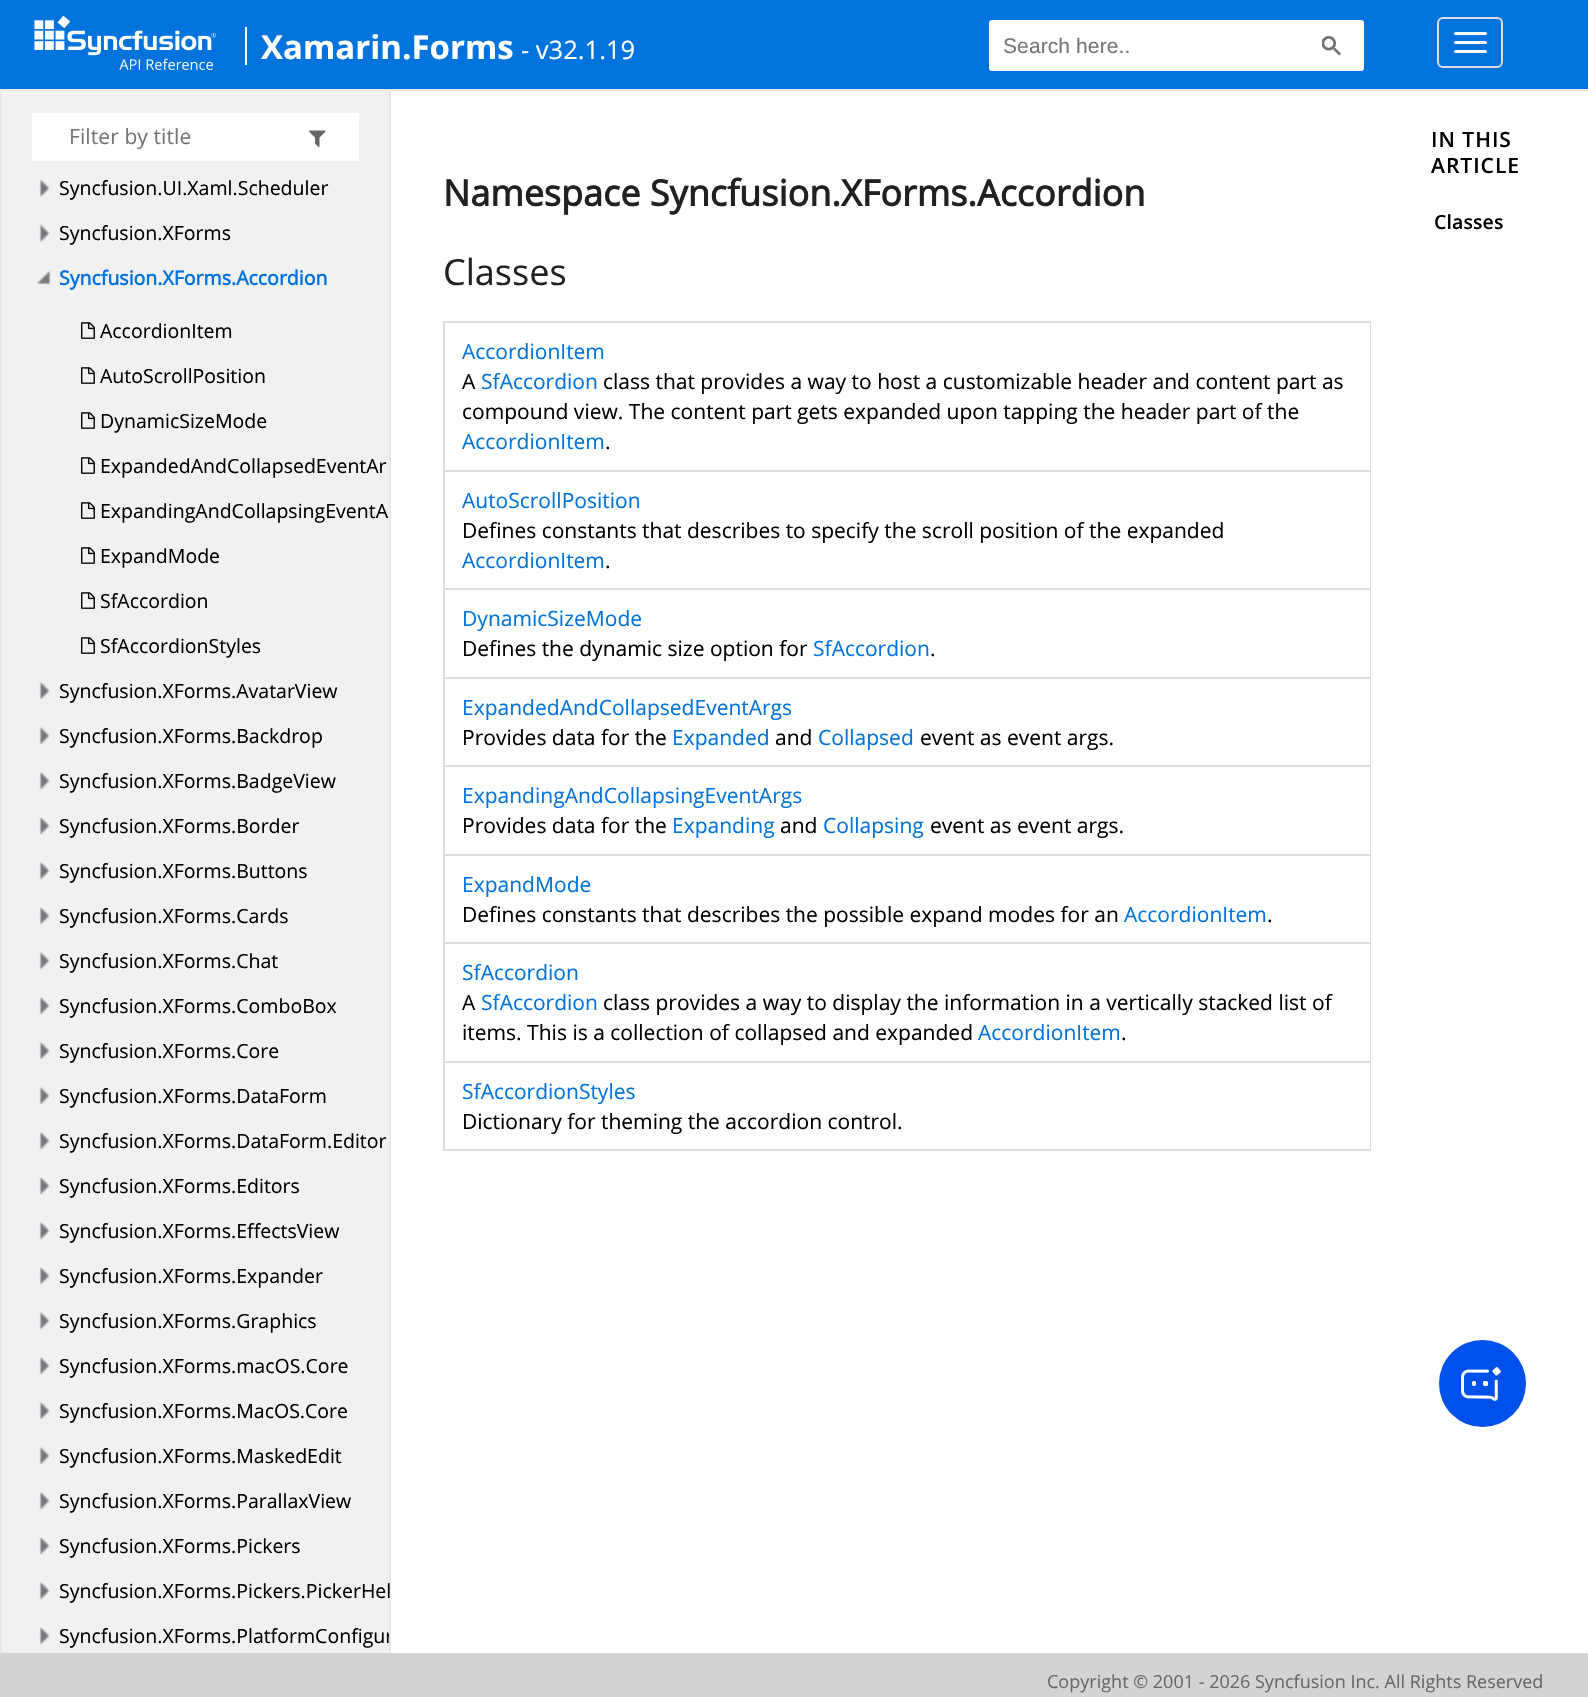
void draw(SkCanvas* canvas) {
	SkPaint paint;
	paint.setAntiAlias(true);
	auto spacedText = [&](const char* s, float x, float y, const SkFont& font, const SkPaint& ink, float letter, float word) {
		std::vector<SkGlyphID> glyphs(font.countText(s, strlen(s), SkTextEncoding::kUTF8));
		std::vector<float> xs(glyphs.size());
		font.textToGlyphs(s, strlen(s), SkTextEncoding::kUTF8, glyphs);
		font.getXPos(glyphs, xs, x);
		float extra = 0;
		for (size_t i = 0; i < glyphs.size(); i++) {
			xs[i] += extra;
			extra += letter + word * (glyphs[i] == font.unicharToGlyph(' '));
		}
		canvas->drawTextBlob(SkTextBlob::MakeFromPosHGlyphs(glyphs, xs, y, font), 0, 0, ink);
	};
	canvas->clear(0xffffffff);
	paint.setColor(0xff0073dc);
	canvas->drawRect(SkRect::MakeXYWH(0, 0, 1588, 89), paint);
	paint.setColor(0xffe7e7e7);
	canvas->drawRect(SkRect::MakeXYWH(389, 90, 2, 1563), paint);
	canvas->drawRect(SkRect::MakeXYWH(0, 90, 2, 1563), paint);
	canvas->drawRect(SkRect::MakeXYWH(0, 89, 1588, 2), paint);
	canvas->drawImageRect(SkImages::DeferredFromEncodedData(SkData::MakeFromFileName("img1.png")), SkRect::MakeXYWH(34, 15, 182, 55), SkSamplingOptions());
	paint.setColor(0xffffffff);
	canvas->drawRect(SkRect::MakeXYWH(245, 27, 2, 38), paint);
	SkFont f1(fontMgr->matchFamilyStyle("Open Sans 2", SkFontStyle::Bold()), 33);
	f1.setSubpixel(true);
	canvas->drawString("Xamarin.Forms", 261, 59, f1, paint);
	SkFont f2(fontMgr->matchFamilyStyle("Open Sans", SkFontStyle::Normal()), 25.5);
	f2.setSubpixel(true);
	canvas->drawString("- v32.1.19", 521, 59, f2, paint);
	canvas->drawRoundRect(SkRect::MakeXYWH(990, 21, 373, 49), 2, 2, paint);
	paint.setStroke(true);
	paint.setStrokeWidth(2);
	canvas->drawRoundRect(SkRect::MakeXYWH(990, 21, 373, 49), 2, 2, paint);
	SkFont f3(fontMgr->matchFamilyStyle("Liberation Sans", SkFontStyle::Normal()), 21);
	f3.setSubpixel(true);
	paint.setStroke(false);
	paint.setColor(0xff757575);
	spacedText("Search here..", 1003, 53, f3, paint, 0.1, 0);
	canvas->drawImageRect(SkImages::DeferredFromEncodedData(SkData::MakeFromFileName("img2.png")), SkRect::MakeXYWH(1322, 36, 19, 20), SkSamplingOptions());
	paint.setStroke(true);
	paint.setColor(0xffdddddd);
	canvas->drawRoundRect(SkRect::MakeXYWH(1438, 18, 64, 49), 5, 5, paint);
	paint.setStroke(false);
	paint.setColor(0xffffffff);
	canvas->drawRoundRect(SkRect::MakeXYWH(1454, 32, 33, 3), 1.5, 1.5, paint);
	canvas->drawRoundRect(SkRect::MakeXYWH(1454, 41, 33, 3), 1.5, 1.5, paint);
	canvas->drawRoundRect(SkRect::MakeXYWH(1454, 50, 33, 3), 1.5, 1.5, paint);
	paint.setColor(0xfff1f1f1);
	canvas->drawRect(SkRect::MakeXYWH(2, 91, 387, 1562), paint);
	paint.setColor(0xffffffff);
	canvas->drawRect(SkRect::MakeXYWH(32, 113, 327, 48), paint);
	SkFont f4(fontMgr->matchFamilyStyle("Open Sans", SkFontStyle::Normal()), 21);
	f4.setSubpixel(true);
	paint.setColor(0xff757575);
	spacedText("Filter by title", 69, 144, f4, paint, 0.1, 0);
	canvas->drawImageRect(SkImages::DeferredFromEncodedData(SkData::MakeFromFileName("img3.png")), SkRect::MakeXYWH(309, 130, 17, 17), SkSamplingOptions());
	canvas->drawImageRect(SkImages::DeferredFromEncodedData(SkData::MakeFromFileName("img4.png")), SkRect::MakeXYWH(39, 180, 11, 18), SkSamplingOptions());
	SkFont f5(fontMgr->matchFamilyStyle("Open Sans", SkFontStyle::Normal()), 19.5);
	f5.setSubpixel(true);
	paint.setColor(0xff000000);
	canvas->drawString("Syncfusion.UI.Xaml.Scheduler", 59, 195, f5, paint);
	canvas->drawImageRect(SkImages::DeferredFromEncodedData(SkData::MakeFromFileName("img5.png")), SkRect::MakeXYWH(39, 224, 11, 19), SkSamplingOptions());
	canvas->drawString("Syncfusion.XForms", 59, 240, f5, paint);
	canvas->drawImageRect(SkImages::DeferredFromEncodedData(SkData::MakeFromFileName("img6.png")), SkRect::MakeXYWH(37, 271, 14, 14), SkSamplingOptions());
	SkFont f6(fontMgr->matchFamilyStyle("Open Sans", SkFontStyle::Bold()), 19.5);
	f6.setSubpixel(true);
	paint.setColor(0xff0073dc);
	canvas->drawString("Syncfusion.XForms.Accordion", 59, 285, f6, paint);
	canvas->drawImageRect(SkImages::DeferredFromEncodedData(SkData::MakeFromFileName("img7.png")), SkRect::MakeXYWH(81, 322, 14, 17), SkSamplingOptions());
	paint.setColor(0xff000000);
	canvas->drawString("AccordionItem", 100, 338, f5, paint);
	canvas->drawImageRect(SkImages::DeferredFromEncodedData(SkData::MakeFromFileName("img7.png")), SkRect::MakeXYWH(81, 367, 14, 17), SkSamplingOptions());
	canvas->drawString("AutoScrollPosition", 100, 383, f5, paint);
	canvas->drawImageRect(SkImages::DeferredFromEncodedData(SkData::MakeFromFileName("img7.png")), SkRect::MakeXYWH(81, 412, 14, 17), SkSamplingOptions());
	canvas->drawString("DynamicSizeMode", 100, 428, f5, paint);
	canvas->drawImageRect(SkImages::DeferredFromEncodedData(SkData::MakeFromFileName("img7.png")), SkRect::MakeXYWH(81, 457, 14, 17), SkSamplingOptions());
	canvas->drawString("ExpandedAndCollapsedEventAr", 100, 473, f5, paint);
	canvas->drawImageRect(SkImages::DeferredFromEncodedData(SkData::MakeFromFileName("img7.png")), SkRect::MakeXYWH(81, 502, 14, 17), SkSamplingOptions());
	canvas->drawString("ExpandingAndCollapsingEventA", 100, 518, f5, paint);
	canvas->drawImageRect(SkImages::DeferredFromEncodedData(SkData::MakeFromFileName("img7.png")), SkRect::MakeXYWH(81, 547, 14, 17), SkSamplingOptions());
	canvas->drawString("ExpandMode", 100, 563, f5, paint);
	canvas->drawImageRect(SkImages::DeferredFromEncodedData(SkData::MakeFromFileName("img7.png")), SkRect::MakeXYWH(81, 592, 14, 17), SkSamplingOptions());
	canvas->drawString("SfAccordion", 100, 608, f5, paint);
	canvas->drawImageRect(SkImages::DeferredFromEncodedData(SkData::MakeFromFileName("img7.png")), SkRect::MakeXYWH(81, 637, 14, 17), SkSamplingOptions());
	canvas->drawString("SfAccordionStyles", 100, 653, f5, paint);
	canvas->drawImageRect(SkImages::DeferredFromEncodedData(SkData::MakeFromFileName("img8.png")), SkRect::MakeXYWH(39, 682, 11, 18), SkSamplingOptions());
	canvas->drawString("Syncfusion.XForms.AvatarView", 59, 698, f5, paint);
	canvas->drawImageRect(SkImages::DeferredFromEncodedData(SkData::MakeFromFileName("img8.png")), SkRect::MakeXYWH(39, 727, 11, 18), SkSamplingOptions());
	canvas->drawString("Syncfusion.XForms.Backdrop", 59, 743, f5, paint);
	canvas->drawImageRect(SkImages::DeferredFromEncodedData(SkData::MakeFromFileName("img8.png")), SkRect::MakeXYWH(39, 772, 11, 18), SkSamplingOptions());
	canvas->drawString("Syncfusion.XForms.BadgeView", 59, 788, f5, paint);
	canvas->drawImageRect(SkImages::DeferredFromEncodedData(SkData::MakeFromFileName("img8.png")), SkRect::MakeXYWH(39, 817, 11, 18), SkSamplingOptions());
	canvas->drawString("Syncfusion.XForms.Border", 59, 833, f5, paint);
	canvas->drawImageRect(SkImages::DeferredFromEncodedData(SkData::MakeFromFileName("img8.png")), SkRect::MakeXYWH(39, 862, 11, 18), SkSamplingOptions());
	canvas->drawString("Syncfusion.XForms.Buttons", 59, 878, f5, paint);
	canvas->drawImageRect(SkImages::DeferredFromEncodedData(SkData::MakeFromFileName("img8.png")), SkRect::MakeXYWH(39, 907, 11, 18), SkSamplingOptions());
	canvas->drawString("Syncfusion.XForms.Cards", 59, 923, f5, paint);
	canvas->drawImageRect(SkImages::DeferredFromEncodedData(SkData::MakeFromFileName("img8.png")), SkRect::MakeXYWH(39, 952, 11, 18), SkSamplingOptions());
	canvas->drawString("Syncfusion.XForms.Chat", 59, 968, f5, paint);
	canvas->drawImageRect(SkImages::DeferredFromEncodedData(SkData::MakeFromFileName("img8.png")), SkRect::MakeXYWH(39, 997, 11, 18), SkSamplingOptions());
	canvas->drawString("Syncfusion.XForms.ComboBox", 59, 1013, f5, paint);
	canvas->drawImageRect(SkImages::DeferredFromEncodedData(SkData::MakeFromFileName("img8.png")), SkRect::MakeXYWH(39, 1042, 11, 18), SkSamplingOptions());
	canvas->drawString("Syncfusion.XForms.Core", 59, 1058, f5, paint);
	canvas->drawImageRect(SkImages::DeferredFromEncodedData(SkData::MakeFromFileName("img8.png")), SkRect::MakeXYWH(39, 1087, 11, 18), SkSamplingOptions());
	canvas->drawString("Syncfusion.XForms.DataForm", 59, 1103, f5, paint);
	canvas->drawImageRect(SkImages::DeferredFromEncodedData(SkData::MakeFromFileName("img8.png")), SkRect::MakeXYWH(39, 1132, 11, 18), SkSamplingOptions());
	canvas->drawString("Syncfusion.XForms.DataForm.Editor", 59, 1148, f5, paint);
	canvas->drawImageRect(SkImages::DeferredFromEncodedData(SkData::MakeFromFileName("img8.png")), SkRect::MakeXYWH(39, 1177, 11, 18), SkSamplingOptions());
	canvas->drawString("Syncfusion.XForms.Editors", 59, 1193, f5, paint);
	canvas->drawImageRect(SkImages::DeferredFromEncodedData(SkData::MakeFromFileName("img8.png")), SkRect::MakeXYWH(39, 1222, 11, 18), SkSamplingOptions());
	canvas->drawString("Syncfusion.XForms.EffectsView", 59, 1238, f5, paint);
	canvas->drawImageRect(SkImages::DeferredFromEncodedData(SkData::MakeFromFileName("img8.png")), SkRect::MakeXYWH(39, 1267, 11, 18), SkSamplingOptions());
	canvas->drawString("Syncfusion.XForms.Expander", 59, 1283, f5, paint);
	canvas->drawImageRect(SkImages::DeferredFromEncodedData(SkData::MakeFromFileName("img8.png")), SkRect::MakeXYWH(39, 1312, 11, 18), SkSamplingOptions());
	canvas->drawString("Syncfusion.XForms.Graphics", 59, 1328, f5, paint);
	canvas->drawImageRect(SkImages::DeferredFromEncodedData(SkData::MakeFromFileName("img8.png")), SkRect::MakeXYWH(39, 1357, 11, 18), SkSamplingOptions());
	canvas->drawString("Syncfusion.XForms.macOS.Core", 59, 1373, f5, paint);
	canvas->drawImageRect(SkImages::DeferredFromEncodedData(SkData::MakeFromFileName("img8.png")), SkRect::MakeXYWH(39, 1402, 11, 18), SkSamplingOptions());
	canvas->drawString("Syncfusion.XForms.MacOS.Core", 59, 1418, f5, paint);
	canvas->drawImageRect(SkImages::DeferredFromEncodedData(SkData::MakeFromFileName("img8.png")), SkRect::MakeXYWH(39, 1447, 11, 18), SkSamplingOptions());
	canvas->drawString("Syncfusion.XForms.MaskedEdit", 59, 1463, f5, paint);
	canvas->drawImageRect(SkImages::DeferredFromEncodedData(SkData::MakeFromFileName("img8.png")), SkRect::MakeXYWH(39, 1492, 11, 18), SkSamplingOptions());
	canvas->drawString("Syncfusion.XForms.ParallaxView", 59, 1508, f5, paint);
	canvas->drawImageRect(SkImages::DeferredFromEncodedData(SkData::MakeFromFileName("img8.png")), SkRect::MakeXYWH(39, 1537, 11, 18), SkSamplingOptions());
	canvas->drawString("Syncfusion.XForms.Pickers", 59, 1553, f5, paint);
	canvas->drawImageRect(SkImages::DeferredFromEncodedData(SkData::MakeFromFileName("img8.png")), SkRect::MakeXYWH(39, 1582, 11, 18), SkSamplingOptions());
	canvas->drawString("Syncfusion.XForms.Pickers.PickerHel", 59, 1598, f5, paint);
	canvas->drawImageRect(SkImages::DeferredFromEncodedData(SkData::MakeFromFileName("img8.png")), SkRect::MakeXYWH(39, 1627, 11, 18), SkSamplingOptions());
	canvas->save();
	canvas->clipRect(SkRect::MakeXYWH(2, 180, 387, 1473));
	canvas->drawString("Syncfusion.XForms.PlatformConfigur", 59, 1643, f5, paint);
	canvas->restore();
	SkFont f7(fontMgr->matchFamilyStyle("Open Sans", SkFontStyle::Bold()), 36);
	f7.setSubpixel(true);
	paint.setColor(0xff212121);
	canvas->drawString("Namespace Syncfusion.XForms.Accordion", 443, 206, f7, paint);
	SkFont f8(fontMgr->matchFamilyStyle("Open Sans", SkFontStyle::Normal()), 36);
	f8.setSubpixel(true);
	canvas->drawString("Classes", 443, 285, f8, paint);
	paint.setColor(0xffdddddd);
	canvas->drawRect(SkRect::MakeXYWH(443, 321, 928, 2), paint);
	canvas->drawRect(SkRect::MakeXYWH(1370, 321, 1, 830), paint);
	canvas->drawRect(SkRect::MakeXYWH(443, 1149, 928, 2), paint);
	canvas->drawRect(SkRect::MakeXYWH(443, 321, 2, 830), paint);
	paint.setColor(0xff0073dc);
	canvas->drawString("AccordionItem", 462, 359, f4, paint);
	paint.setColor(0xff000000);
	canvas->drawString("A", 462, 389, f4, paint);
	paint.setColor(0xff0073dc);
	canvas->drawString("SfAccordion", 481, 389, f4, paint);
	paint.setColor(0xff000000);
	canvas->drawString("class that provides a way to host a customizable header and content part as", 603, 389, f4, paint);
	canvas->drawString("compound view. The content part gets expanded upon tapping the header part of the", 462, 419, f4, paint);
	paint.setColor(0xff0073dc);
	canvas->drawString("AccordionItem", 462, 449, f4, paint);
	paint.setColor(0xff000000);
	canvas->drawString(".", 605, 449, f4, paint);
	paint.setColor(0xffdddddd);
	canvas->drawRect(SkRect::MakeXYWH(443, 470, 928, 2), paint);
	paint.setColor(0xff0073dc);
	canvas->drawString("AutoScrollPosition", 462, 508, f4, paint);
	paint.setColor(0xff000000);
	canvas->drawString("Defines constants that describes to specify the scroll position of the expanded", 462, 538, f4, paint);
	paint.setColor(0xff0073dc);
	canvas->drawString("AccordionItem", 462, 568, f4, paint);
	paint.setColor(0xff000000);
	canvas->drawString(".", 605, 568, f4, paint);
	paint.setColor(0xffdddddd);
	canvas->drawRect(SkRect::MakeXYWH(443, 588, 928, 2), paint);
	paint.setColor(0xff0073dc);
	canvas->drawString("DynamicSizeMode", 462, 626, f4, paint);
	paint.setColor(0xff000000);
	canvas->drawString("Defines the dynamic size option for", 462, 656, f4, paint);
	paint.setColor(0xff0073dc);
	canvas->drawString("SfAccordion", 813, 656, f4, paint);
	paint.setColor(0xff000000);
	canvas->drawString(".", 930, 656, f4, paint);
	paint.setColor(0xffdddddd);
	canvas->drawRect(SkRect::MakeXYWH(443, 677, 928, 2), paint);
	paint.setColor(0xff0073dc);
	canvas->drawString("ExpandedAndCollapsedEventArgs", 462, 715, f4, paint);
	paint.setColor(0xff000000);
	canvas->drawString("Provides data for the", 462, 745, f4, paint);
	paint.setColor(0xff0073dc);
	canvas->drawString("Expanded", 672, 745, f4, paint);
	paint.setColor(0xff000000);
	canvas->drawString("and", 775, 745, f4, paint);
	paint.setColor(0xff0073dc);
	canvas->drawString("Collapsed", 818, 745, f4, paint);
	paint.setColor(0xff000000);
	canvas->drawString("event as event args.", 920, 745, f4, paint);
	paint.setColor(0xffdddddd);
	canvas->drawRect(SkRect::MakeXYWH(443, 765, 928, 2), paint);
	paint.setColor(0xff0073dc);
	canvas->drawString("ExpandingAndCollapsingEventArgs", 462, 803, f4, paint);
	paint.setColor(0xff000000);
	canvas->drawString("Provides data for the", 462, 833, f4, paint);
	paint.setColor(0xff0073dc);
	canvas->drawString("Expanding", 672, 833, f4, paint);
	paint.setColor(0xff000000);
	canvas->drawString("and", 780, 833, f4, paint);
	paint.setColor(0xff0073dc);
	canvas->drawString("Collapsing", 823, 833, f4, paint);
	paint.setColor(0xff000000);
	canvas->drawString("event as event args.", 930, 833, f4, paint);
	paint.setColor(0xffdddddd);
	canvas->drawRect(SkRect::MakeXYWH(443, 854, 928, 2), paint);
	paint.setColor(0xff0073dc);
	canvas->drawString("ExpandMode", 462, 892, f4, paint);
	paint.setColor(0xff000000);
	canvas->drawString("Defines constants that describes the possible expand modes for an", 462, 922, f4, paint);
	paint.setColor(0xff0073dc);
	canvas->drawString("AccordionItem", 1124, 922, f4, paint);
	paint.setColor(0xff000000);
	canvas->drawString(".", 1267, 922, f4, paint);
	paint.setColor(0xffdddddd);
	canvas->drawRect(SkRect::MakeXYWH(443, 942, 928, 2), paint);
	paint.setColor(0xff0073dc);
	canvas->drawString("SfAccordion", 462, 980, f4, paint);
	paint.setColor(0xff000000);
	canvas->drawString("A", 462, 1010, f4, paint);
	paint.setColor(0xff0073dc);
	canvas->drawString("SfAccordion", 481, 1010, f4, paint);
	paint.setColor(0xff000000);
	canvas->drawString("class provides a way to display the information in a vertically stacked list of", 603, 1010, f4, paint);
	canvas->drawString("items. This is a collection of collapsed and expanded", 462, 1040, f4, paint);
	paint.setColor(0xff0073dc);
	canvas->drawString("AccordionItem", 978, 1040, f4, paint);
	paint.setColor(0xff000000);
	canvas->drawString(".", 1121, 1040, f4, paint);
	paint.setColor(0xffdddddd);
	canvas->drawRect(SkRect::MakeXYWH(443, 1061, 928, 2), paint);
	paint.setColor(0xff0073dc);
	canvas->drawString("SfAccordionStyles", 462, 1099, f4, paint);
	paint.setColor(0xff000000);
	canvas->drawString("Dictionary for theming the accordion control.", 462, 1129, f4, paint);
	SkFont f9(fontMgr->matchFamilyStyle("Open Sans", SkFontStyle(600, SkFontStyle::kNormal_Width, SkFontStyle::kUpright_Slant)), 21);
	f9.setSubpixel(true);
	spacedText("IN THIS", 1431, 147, f9, paint, 1, 0);
	spacedText("ARTICLE", 1431, 173, f9, paint, 1, 0);
	SkFont f10(fontMgr->matchFamilyStyle("Open Sans", SkFontStyle(600, SkFontStyle::kNormal_Width, SkFontStyle::kUpright_Slant)), 19.5);
	f10.setSubpixel(true);
	spacedText("Classes", 1434, 229, f10, paint, 0.1, 0);
	paint.setColor(0xff0050eb);
	canvas->drawCircle(1482.5, 1383.5, 43.5, paint);
	canvas->drawImageRect(SkImages::DeferredFromEncodedData(SkData::MakeFromFileName("img9.png")), SkRect::MakeXYWH(1461, 1367, 40, 34), SkSamplingOptions());
	paint.setColor(0xffd3d3d3);
	canvas->drawRect(SkRect::MakeXYWH(0, 1653, 1588, 44), paint);
	SkFont f11(fontMgr->matchFamilyStyle("Open Sans", SkFontStyle::Normal()), 18);
	f11.setSubpixel(true);
	paint.setColor(0xff686868);
	canvas->drawString("Copyright © 2001 - 2026 Syncfusion Inc. All Rights Reserved", 1047, 1688, f11, paint);
}
